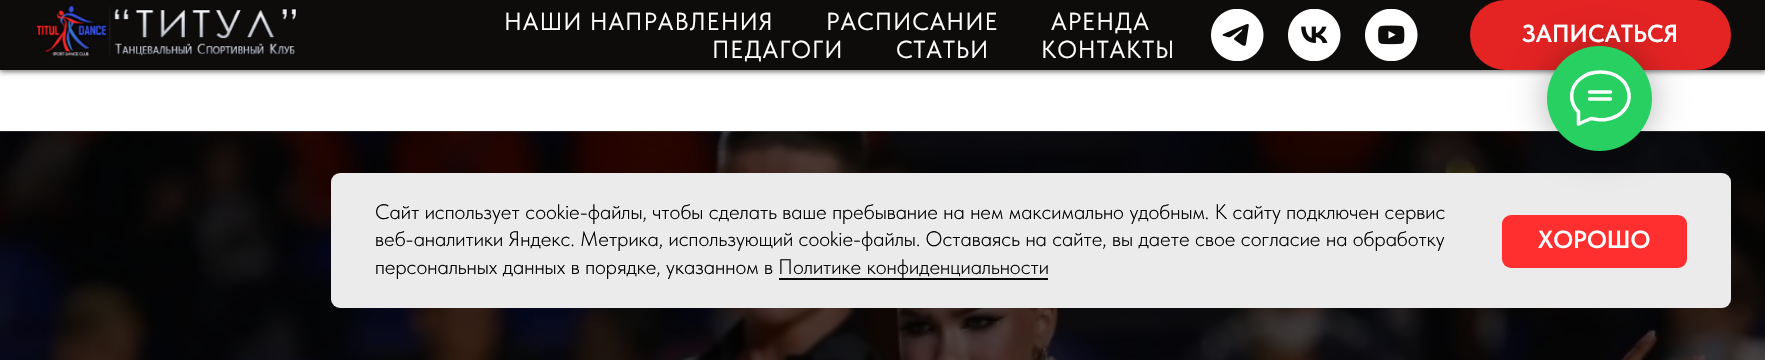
void draw(SkCanvas* canvas) {
	SkPaint paint;
	paint.setAntiAlias(true);
	auto spacedText = [&](const char* s, float x, float y, const SkFont& font, const SkPaint& ink, float letter, float word) {
		std::vector<SkGlyphID> glyphs(font.countText(s, strlen(s), SkTextEncoding::kUTF8));
		std::vector<float> xs(glyphs.size());
		font.textToGlyphs(s, strlen(s), SkTextEncoding::kUTF8, glyphs);
		font.getXPos(glyphs, xs, x);
		float extra = 0;
		for (size_t i = 0; i < glyphs.size(); i++) {
			xs[i] += extra;
			extra += letter + word * (glyphs[i] == font.unicharToGlyph(' '));
		}
		canvas->drawTextBlob(SkTextBlob::MakeFromPosHGlyphs(glyphs, xs, y, font), 0, 0, ink);
	};
	auto svgPath = [&](const char* data, bool evenOdd = false) {
		SkPath result = *SkParsePath::FromSVGString(data);
		if (evenOdd) result.setFillType(SkPathFillType::kEvenOdd);
		return result;
	};
	canvas->clear(0xffffffff);
	paint.setColor(0x80000000);
	paint.setMaskFilter(SkMaskFilter::MakeBlur(kNormal_SkBlurStyle, 2.5));
	canvas->drawRect(SkRect::MakeXYWH(0, 2, 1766, 70), paint);
	paint.setMaskFilter(nullptr);
	paint.setColor(0xff0e0b0b);
	canvas->drawRect(SkRect::MakeXYWH(0, 0, 1765, 70), paint);
	paint.setColor(0xffe42323);
	canvas->drawRoundRect(SkRect::MakeXYWH(1470, 0, 261, 70), 35, 35, paint);
	canvas->drawImageRect(SkImages::DeferredFromEncodedData(SkData::MakeFromFileName("img5.png")), SkRect::MakeXYWH(0, 131, 1765, 1), SkSamplingOptions());
	canvas->drawImageRect(SkImages::DeferredFromEncodedData(SkData::MakeFromFileName("img6.png")), SkRect::MakeXYWH(0, 131, 1765, 229), SkSamplingOptions());
	paint.setColor(0xffebebeb);
	canvas->drawRoundRect(SkRect::MakeXYWH(331, 173, 1400, 135), 9, 9, paint);
	paint.setColor(0x4d000000);
	paint.setMaskFilter(SkMaskFilter::MakeBlur(kNormal_SkBlurStyle, 17.5));
	canvas->drawRoundRect(SkRect::MakeXYWH(1547, 46, 105, 105), 52.5, 52.5, paint);
	paint.setMaskFilter(nullptr);
	paint.setColor(0xff27d061);
	canvas->drawCircle(1599.5, 98.5, 52.5, paint);
	paint.setStroke(true);
	paint.setStrokeWidth(3.5);
	paint.setStrokeCap(SkPaint::kRound_Cap);
	paint.setStrokeJoin(SkPaint::kRound_Join);
	paint.setColor(0xffffffff);
	canvas->drawPath(svgPath("M1589.5 92H1610.5M1589.5 99H1610.5M1578 111.5C1569 102 1569.5 87.5 1580 79C1585.5 74 1593 72 1600.5 72C1634.5 72 1640.5 113.5 1606 119.5C1600 120.5 1596.5 119 1591 118.5L1578.5 124V111.5Z"), paint);
	canvas->drawImageRect(SkImages::DeferredFromEncodedData(SkData::MakeFromFileName("img1.png")), SkRect::MakeXYWH(36, 5, 261, 52), SkSamplingOptions());
	SkFont f1(fontMgr->matchFamilyStyle("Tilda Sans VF", SkFontStyle::Normal()), 24.5);
	f1.setSubpixel(true);
	paint.setStroke(false);
	spacedText("НАШИ НАПРАВЛЕНИЯ", 504, 30, f1, paint, 0.9, 0);
	spacedText("РАСПИСАНИЕ", 826, 30, f1, paint, 0.9, 0);
	spacedText("АРЕНДА", 1051, 30, f1, paint, 0.9, 0);
	spacedText("ПЕДАГОГИ", 712, 58, f1, paint, 0.9, 0);
	spacedText("СТАТЬИ", 896, 58, f1, paint, 0.9, 0);
	spacedText("КОНТАКТЫ", 1041, 58, f1, paint, 0.9, 0);
	canvas->drawImageRect(SkImages::DeferredFromEncodedData(SkData::MakeFromFileName("img2.png")), SkRect::MakeXYWH(1211, 9, 53, 52), SkSamplingOptions());
	canvas->drawImageRect(SkImages::DeferredFromEncodedData(SkData::MakeFromFileName("img3.png")), SkRect::MakeXYWH(1288, 9, 53, 52), SkSamplingOptions());
	canvas->drawImageRect(SkImages::DeferredFromEncodedData(SkData::MakeFromFileName("img4.png")), SkRect::MakeXYWH(1365, 9, 53, 52), SkSamplingOptions());
	SkFont f2(fontMgr->matchFamilyStyle("Tilda Sans VF", SkFontStyle(600, SkFontStyle::kNormal_Width, SkFontStyle::kUpright_Slant)), 24.5);
	f2.setSubpixel(true);
	canvas->drawString("ЗАПИСАТЬСЯ", 1522, 42, f2, paint);
	SkFont f3(fontMgr->matchFamilyStyle("Tilda Sans VF", SkFontStyle(300, SkFontStyle::kNormal_Width, SkFontStyle::kUpright_Slant)), 21);
	f3.setSubpixel(true);
	paint.setColor(0xff000000);
	canvas->drawString("Сайт использует cookie-файлы, чтобы сделать ваше пребывание на нем максимально удобным. К cайту подключен сервис", 375, 219, f3, paint);
	canvas->drawString("веб-аналитики Яндекс. Метрика, использующий cookie-файлы. Оставаясь на сайте, вы даете свое согласие на обработку", 375, 246, f3, paint);
	canvas->drawString("персональных данных в порядке, указанном в", 375, 274, f3, paint);
	paint.setColor(0xff070707);
	canvas->drawRect(SkRect::MakeXYWH(779, 278, 269, 2), paint);
	canvas->drawString("Политике конфиденциальности", 778, 274, f3, paint);
	paint.setColor(0xffff2f2f);
	canvas->drawRoundRect(SkRect::MakeXYWH(1502, 215, 185, 53), 9, 9, paint);
	paint.setColor(0xffffffff);
	canvas->drawString("ХОРОШО", 1538, 248, f2, paint);
}
